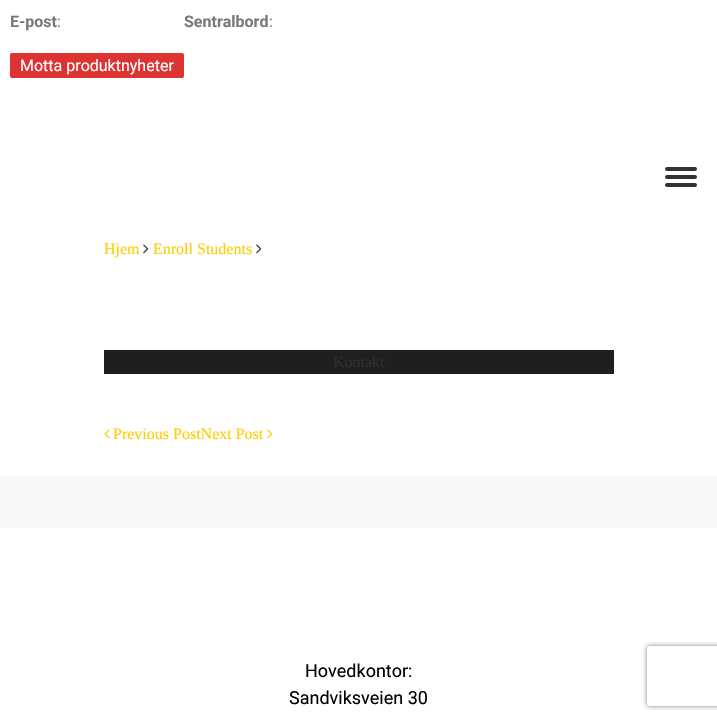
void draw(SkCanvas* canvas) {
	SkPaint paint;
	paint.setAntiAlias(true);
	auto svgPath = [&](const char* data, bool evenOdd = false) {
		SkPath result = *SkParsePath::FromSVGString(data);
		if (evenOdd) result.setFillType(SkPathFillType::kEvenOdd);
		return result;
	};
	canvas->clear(0xffffffff);
	SkFont f1(fontMgr->matchFamilyStyle("Roboto", SkFontStyle::Bold()), 16);
	f1.setSubpixel(true);
	paint.setColor(0xff7a7a7a);
	canvas->drawString("E-post", 10, 27, f1, paint);
	SkFont f2(fontMgr->matchFamilyStyle("Roboto", SkFontStyle::Normal()), 16);
	f2.setSubpixel(true);
	canvas->drawString(":", 57, 27, f2, paint);
	canvas->drawString("Sentralbord", 184, 27, f1, paint);
	canvas->drawString(":", 269, 27, f2, paint);
	paint.setColor(0xffdd3333);
	canvas->drawRoundRect(SkRect::MakeXYWH(10, 53, 174, 25), 2, 2, paint);
	paint.setColor(0xffffffff);
	canvas->drawString("Motta produktnyheter", 20, 71, f2, paint);
	paint.setColor(0xff333333);
	canvas->drawRoundRect(SkRect::MakeXYWH(665, 167, 32, 4), 2, 2, paint);
	canvas->drawRoundRect(SkRect::MakeXYWH(665, 175, 32, 4), 2, 2, paint);
	canvas->drawRoundRect(SkRect::MakeXYWH(665, 183, 32, 4), 2, 2, paint);
	SkFont f3(fontMgr->matchFamilyStyle("Liberation Serif", SkFontStyle::Normal()), 16);
	f3.setSubpixel(true);
	paint.setColor(0xfffece00);
	canvas->drawString("Hjem", 104, 254, f3, paint);
	canvas->drawImageRect(SkImages::DeferredFromEncodedData(SkData::MakeFromFileName("img1.png")), SkRect::MakeXYWH(143, 244, 6, 10), SkSamplingOptions());
	canvas->drawString("Enroll Students", 153, 254, f3, paint);
	canvas->drawImageRect(SkImages::DeferredFromEncodedData(SkData::MakeFromFileName("img1.png")), SkRect::MakeXYWH(256, 244, 6, 10), SkSamplingOptions());
	paint.setColor(0xff1f1f1f);
	canvas->drawRect(SkRect::MakeXYWH(104, 350, 510, 24), paint);
	paint.setColor(0xff303030);
	canvas->drawString("Kontakt", 333, 367, f3, paint);
	canvas->drawImageRect(SkImages::DeferredFromEncodedData(SkData::MakeFromFileName("img2.png")), SkRect::MakeXYWH(104, 429, 6, 10), SkSamplingOptions());
	paint.setColor(0xfffece00);
	canvas->drawString("Previous PostNext Post", 113, 439, f3, paint);
	canvas->drawImageRect(SkImages::DeferredFromEncodedData(SkData::MakeFromFileName("img3.png")), SkRect::MakeXYWH(267, 429, 6, 10), SkSamplingOptions());
	paint.setColor(0xfff7f7f7);
	canvas->drawRect(SkRect::MakeXYWH(0, 476, 717, 52), paint);
	SkFont f4(fontMgr->matchFamilyStyle("Roboto", SkFontStyle::Normal()), 18);
	f4.setSubpixel(true);
	paint.setColor(0xff000000);
	canvas->drawString("Hovedkontor:", 305, 677, f4, paint);
	canvas->drawString("Sandviksveien 30", 289, 704, f4, paint);
	canvas->save();
	canvas->clipPath(svgPath("M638 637H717V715H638ZM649 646H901C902 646 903 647 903 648V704C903 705 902 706 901 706H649C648 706 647 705 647 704V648C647 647 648 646 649 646Z", true), true);
	paint.setColor(0xff808080);
	paint.setMaskFilter(SkMaskFilter::MakeBlur(kNormal_SkBlurStyle, 2.5));
	canvas->drawRoundRect(SkRect::MakeXYWH(647, 646, 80, 60), 2, 2, paint);
	paint.setMaskFilter(nullptr);
	canvas->restore();
}
